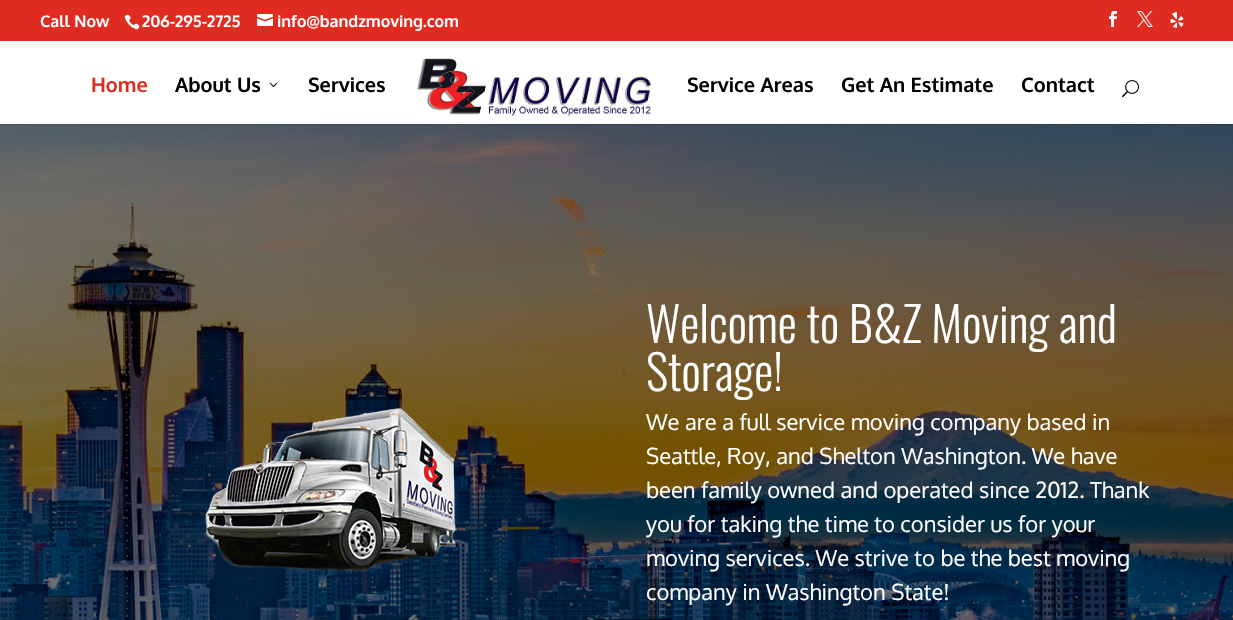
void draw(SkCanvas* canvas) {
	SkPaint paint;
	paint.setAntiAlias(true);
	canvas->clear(0xffffffff);
	paint.setColor(0xffe02b20);
	canvas->drawRect(SkRect::MakeXYWH(0, 0, 1233, 41), paint);
	SkFont f1(fontMgr->matchFamilyStyle("Oxygen", SkFontStyle::Bold()), 16);
	f1.setSubpixel(true);
	paint.setColor(0xffffffff);
	canvas->drawString("Call Now", 40, 27, f1, paint);
	canvas->drawImageRect(SkImages::DeferredFromEncodedData(SkData::MakeFromFileName("img1.png")), SkRect::MakeXYWH(124, 14, 16, 16), SkSamplingOptions());
	canvas->drawString("206-295-2725", 142, 27, f1, paint);
	canvas->drawImageRect(SkImages::DeferredFromEncodedData(SkData::MakeFromFileName("img2.png")), SkRect::MakeXYWH(257, 14, 16, 12), SkSamplingOptions());
	canvas->drawString("info@bandzmoving.com", 277, 27, f1, paint);
	canvas->drawImageRect(SkImages::DeferredFromEncodedData(SkData::MakeFromFileName("img3.png")), SkRect::MakeXYWH(1109, 11, 8, 16), SkSamplingOptions());
	canvas->drawImageRect(SkImages::DeferredFromEncodedData(SkData::MakeFromFileName("img4.png")), SkRect::MakeXYWH(1137, 11, 16, 16), SkSamplingOptions());
	canvas->drawImageRect(SkImages::DeferredFromEncodedData(SkData::MakeFromFileName("img5.png")), SkRect::MakeXYWH(1170, 12, 14, 16), SkSamplingOptions());
	canvas->drawImageRect(SkImages::DeferredFromEncodedData(SkData::MakeFromFileName("img9.png")), SkRect::MakeXYWH(0, 124, 1233, 496), SkSamplingOptions());
	paint.setColor(0x1a000000);
	canvas->drawRect(SkRect::MakeXYWH(0, 124, 1233, 1), paint);
	SkFont f2(fontMgr->matchFamilyStyle("Oxygen", SkFontStyle::Bold()), 20);
	f2.setSubpixel(true);
	paint.setColor(0xffe02b20);
	canvas->drawString("Home", 91, 92, f2, paint);
	paint.setColor(0xff000000);
	canvas->drawString("About Us", 175, 92, f2, paint);
	canvas->drawImageRect(SkImages::DeferredFromEncodedData(SkData::MakeFromFileName("img6.png")), SkRect::MakeXYWH(269, 82, 9, 5), SkSamplingOptions());
	canvas->drawString("Services", 308, 92, f2, paint);
	canvas->drawImageRect(SkImages::DeferredFromEncodedData(SkData::MakeFromFileName("img7.png")), SkRect::MakeXYWH(417, 58, 235, 58), SkSamplingOptions());
	canvas->drawString("Service Areas", 687, 92, f2, paint);
	canvas->drawString("Get An Estimate", 841, 92, f2, paint);
	canvas->drawString("Contact", 1021, 92, f2, paint);
	canvas->drawImageRect(SkImages::DeferredFromEncodedData(SkData::MakeFromFileName("img8.png")), SkRect::MakeXYWH(1122, 80, 17, 18), SkSamplingOptions());
	canvas->drawImageRect(SkImages::DeferredFromEncodedData(SkData::MakeFromFileName("img10.png")), SkRect::MakeXYWH(203, 408, 253, 164), SkSamplingOptions());
	SkFont f3(fontMgr->matchFamilyStyle("Oswald", SkFontStyle(300, SkFontStyle::kNormal_Width, SkFontStyle::kUpright_Slant)), 48);
	f3.setSubpixel(true);
	paint.setColor(0xffffffff);
	canvas->drawString("Welcome to B&Z Moving and", 646, 343, f3, paint);
	canvas->drawString("Storage!", 646, 391, f3, paint);
	SkFont f4(fontMgr->matchFamilyStyle("Oxygen", SkFontStyle::Normal()), 22);
	f4.setSubpixel(true);
	canvas->drawString("We are a full service moving company based in", 646, 430, f4, paint);
	canvas->drawString("Seattle, Roy, and Shelton Washington. We have", 646, 464, f4, paint);
	canvas->drawString("been family owned and operated since 2012. Thank", 646, 498, f4, paint);
	canvas->drawString("you for taking the time to consider us for your", 646, 532, f4, paint);
	canvas->drawString("moving services. We strive to be the best moving", 646, 566, f4, paint);
	canvas->drawString("company in Washington State!", 646, 600, f4, paint);
}
